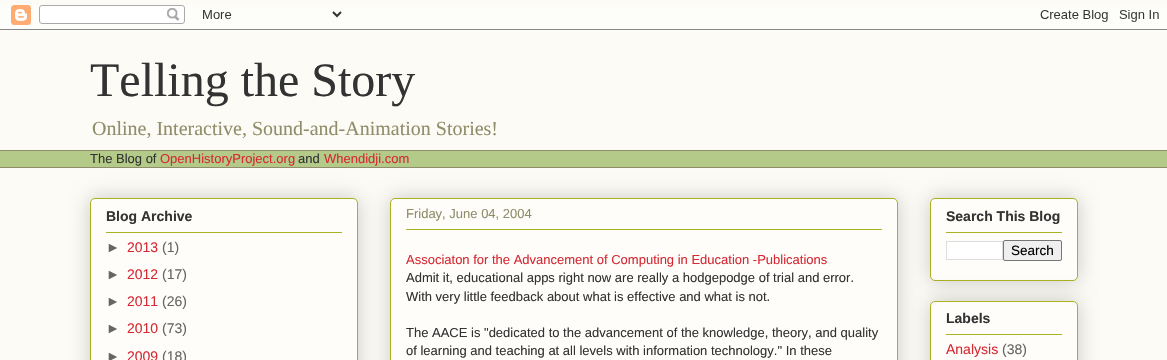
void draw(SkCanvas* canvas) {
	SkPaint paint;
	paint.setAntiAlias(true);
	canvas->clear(0xfffcfbf5);
	canvas->drawImageRect(SkImages::DeferredFromEncodedData(SkData::MakeFromFileName("img1.png")), SkRect::MakeXYWH(0, 5, 1167, 25), SkSamplingOptions());
	SkFont f1(fontMgr->matchFamilyStyle("Liberation Serif", SkFontStyle::Normal()), 48);
	f1.setSubpixel(true);
	paint.setColor(0xff333333);
	canvas->drawString("Telling the Story", 90, 96, f1, paint);
	SkFont f2(fontMgr->matchFamilyStyle("Liberation Serif", SkFontStyle::Normal()), 20);
	f2.setSubpixel(true);
	paint.setColor(0xff908d6a);
	canvas->drawString("Online, Interactive, Sound-and-Animation Stories!", 92, 135, f2, paint);
	paint.setColor(0xffb3ca88);
	canvas->drawRect(SkRect::MakeXYWH(0, 151, 1167, 16), paint);
	paint.setColor(0xff908d6a);
	canvas->drawRect(SkRect::MakeXYWH(0, 150, 1167, 1), paint);
	SkFont f3(fontMgr->matchFamilyStyle("Liberation Sans", SkFontStyle::Normal()), 13);
	f3.setSubpixel(true);
	paint.setColor(0xff333333);
	canvas->drawString("The Blog of", 90, 163, f3, paint);
	paint.setColor(0xffd52a33);
	canvas->drawString("OpenHistoryProject.org", 160, 163, f3, paint);
	paint.setColor(0xff333333);
	canvas->drawString("and", 298, 163, f3, paint);
	paint.setColor(0xffd52a33);
	canvas->drawString("Whendidji.com", 324, 163, f3, paint);
	paint.setColor(0xff908d6a);
	canvas->drawRect(SkRect::MakeXYWH(0, 167, 1167, 1), paint);
	paint.setColor(0x33000000);
	paint.setMaskFilter(SkMaskFilter::MakeBlur(kNormal_SkBlurStyle, 10));
	canvas->drawRoundRect(SkRect::MakeXYWH(90, 198, 268, 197), 5, 5, paint);
	paint.setMaskFilter(nullptr);
	paint.setColor(0xfffefdfa);
	canvas->drawRoundRect(SkRect::MakeXYWH(90.5, 198.5, 267, 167), 4.5, 4.5, paint);
	paint.setStroke(true);
	paint.setStrokeWidth(1);
	paint.setColor(0xffaab123);
	canvas->drawRoundRect(SkRect::MakeXYWH(90.5, 198.5, 267, 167), 4.5, 4.5, paint);
	SkFont f4(fontMgr->matchFamilyStyle("Liberation Sans", SkFontStyle::Bold()), 14);
	f4.setSubpixel(true);
	paint.setStroke(false);
	paint.setColor(0xff333333);
	canvas->drawString("Blog Archive", 106, 221, f4, paint);
	paint.setColor(0xffaab123);
	canvas->drawRect(SkRect::MakeXYWH(106, 232, 236, 1), paint);
	SkFont f5(fontMgr->matchFamilyStyle("Liberation Sans", SkFontStyle::Normal()), 14);
	f5.setSubpixel(true);
	paint.setColor(0xff666666);
	canvas->drawString("►", 106, 252, f5, paint);
	paint.setColor(0xffd52a33);
	canvas->drawString("2013", 127, 252, f5, paint);
	paint.setColor(0xff666666);
	canvas->drawString("(1)", 162, 252, f5, paint);
	canvas->drawString("►", 106, 279, f5, paint);
	paint.setColor(0xffd52a33);
	canvas->drawString("2012", 127, 279, f5, paint);
	paint.setColor(0xff666666);
	canvas->drawString("(17)", 162, 279, f5, paint);
	canvas->drawString("►", 106, 306, f5, paint);
	paint.setColor(0xffd52a33);
	canvas->drawString("2011", 127, 306, f5, paint);
	paint.setColor(0xff666666);
	canvas->drawString("(26)", 162, 306, f5, paint);
	canvas->drawString("►", 106, 333, f5, paint);
	paint.setColor(0xffd52a33);
	canvas->drawString("2010", 127, 333, f5, paint);
	paint.setColor(0xff666666);
	canvas->drawString("(73)", 162, 333, f5, paint);
	canvas->drawString("►", 106, 361, f5, paint);
	paint.setColor(0xffd52a33);
	canvas->drawString("2009", 127, 361, f5, paint);
	paint.setColor(0xff666666);
	canvas->drawString("(18)", 162, 361, f5, paint);
	paint.setColor(0x33000000);
	paint.setMaskFilter(SkMaskFilter::MakeBlur(kNormal_SkBlurStyle, 10));
	canvas->drawRoundRect(SkRect::MakeXYWH(390, 198, 508, 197), 5, 5, paint);
	paint.setMaskFilter(nullptr);
	paint.setColor(0xfffefdfa);
	canvas->drawRoundRect(SkRect::MakeXYWH(390.5, 198.5, 507, 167), 4.5, 4.5, paint);
	paint.setStroke(true);
	paint.setColor(0xffaab123);
	canvas->drawRoundRect(SkRect::MakeXYWH(390.5, 198.5, 507, 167), 4.5, 4.5, paint);
	paint.setStroke(false);
	paint.setColor(0xff908d6a);
	canvas->drawString("Friday, June 04, 2004", 406, 218, f3, paint);
	paint.setColor(0xffaab123);
	canvas->drawRect(SkRect::MakeXYWH(406, 229, 476, 1), paint);
	paint.setColor(0xffd52a33);
	canvas->drawString("Associaton for the Advancement of Computing in Education -Publications", 406, 264, f3, paint);
	paint.setColor(0xff333333);
	canvas->drawString("Admit it, educational apps right now are really a hodgepodge of trial and error.", 406, 282, f3, paint);
	canvas->drawString("With very little feedback about what is effective and what is not.", 406, 301, f3, paint);
	canvas->drawString("The AACE is \"dedicated to the advancement of the knowledge, theory, and quality", 406, 337, f3, paint);
	canvas->drawString("of learning and teaching at all levels with information technology.\" In these", 406, 355, f3, paint);
	paint.setColor(0x33000000);
	paint.setMaskFilter(SkMaskFilter::MakeBlur(kNormal_SkBlurStyle, 10));
	canvas->drawRoundRect(SkRect::MakeXYWH(930, 198, 148, 83), 5, 5, paint);
	paint.setMaskFilter(nullptr);
	paint.setColor(0xfffefdfa);
	canvas->drawRoundRect(SkRect::MakeXYWH(930.5, 198.5, 147, 82), 4.5, 4.5, paint);
	paint.setStroke(true);
	paint.setColor(0xffaab123);
	canvas->drawRoundRect(SkRect::MakeXYWH(930.5, 198.5, 147, 82), 4.5, 4.5, paint);
	paint.setStroke(false);
	paint.setColor(0xff333333);
	canvas->drawString("Search This Blog", 946, 221, f4, paint);
	paint.setColor(0xffaab123);
	canvas->drawRect(SkRect::MakeXYWH(946, 232, 116, 1), paint);
	paint.setColor(0xffffffff);
	canvas->drawRect(SkRect::MakeXYWH(946.5, 241.5, 56, 18), paint);
	paint.setStroke(true);
	paint.setColor(0xffdddddd);
	canvas->drawRect(SkRect::MakeXYWH(946.5, 241.5, 56, 18), paint);
	paint.setStroke(false);
	paint.setColor(0xffefefef);
	canvas->drawRoundRect(SkRect::MakeXYWH(1003.5, 240.5, 58, 20), 1.5, 1.5, paint);
	paint.setStroke(true);
	paint.setColor(0xff767676);
	canvas->drawRoundRect(SkRect::MakeXYWH(1003.5, 240.5, 58, 20), 1.5, 1.5, paint);
	SkFont f6(fontMgr->matchFamilyStyle("Liberation Sans", SkFontStyle::Normal()), 13.5);
	f6.setSubpixel(true);
	paint.setStroke(false);
	paint.setColor(0xff000000);
	canvas->drawString("Search", 1011, 255, f6, paint);
	paint.setColor(0x33000000);
	paint.setMaskFilter(SkMaskFilter::MakeBlur(kNormal_SkBlurStyle, 10));
	canvas->drawRoundRect(SkRect::MakeXYWH(930, 301, 148, 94), 5, 5, paint);
	paint.setMaskFilter(nullptr);
	paint.setColor(0xfffefdfa);
	canvas->drawRoundRect(SkRect::MakeXYWH(930.5, 301.5, 147, 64), 4.5, 4.5, paint);
	paint.setStroke(true);
	paint.setColor(0xffaab123);
	canvas->drawRoundRect(SkRect::MakeXYWH(930.5, 301.5, 147, 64), 4.5, 4.5, paint);
	paint.setStroke(false);
	paint.setColor(0xff333333);
	canvas->drawString("Labels", 946, 323, f4, paint);
	paint.setColor(0xffaab123);
	canvas->drawRect(SkRect::MakeXYWH(946, 334, 116, 1), paint);
	paint.setColor(0xffd52a33);
	canvas->drawString("Analysis", 946, 354, f5, paint);
	paint.setColor(0xff666666);
	canvas->drawString("(38)", 1002, 354, f5, paint);
}
